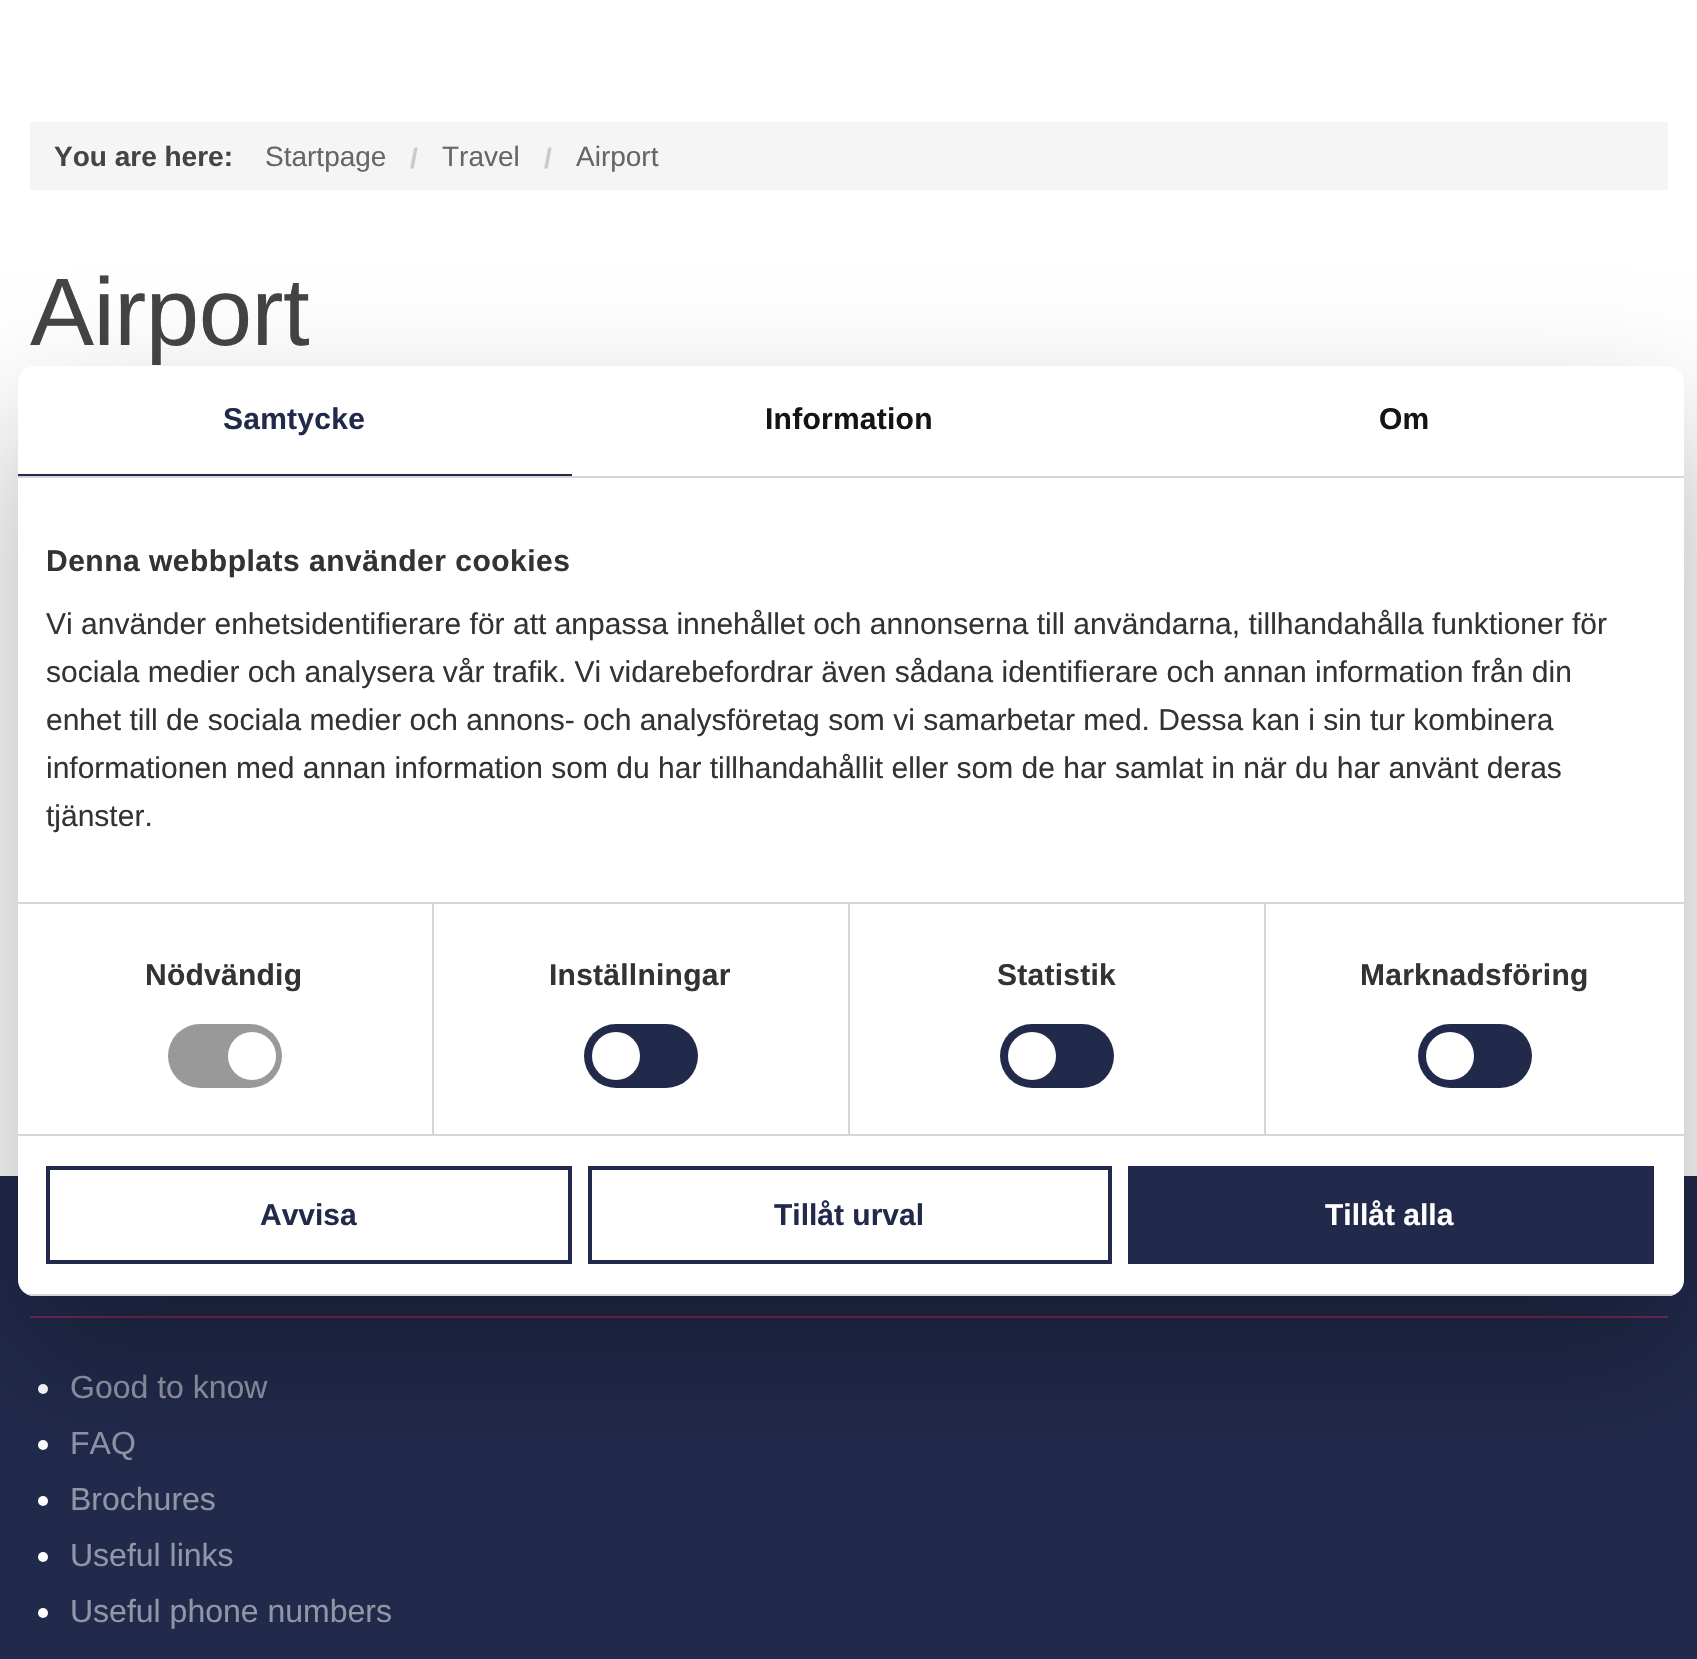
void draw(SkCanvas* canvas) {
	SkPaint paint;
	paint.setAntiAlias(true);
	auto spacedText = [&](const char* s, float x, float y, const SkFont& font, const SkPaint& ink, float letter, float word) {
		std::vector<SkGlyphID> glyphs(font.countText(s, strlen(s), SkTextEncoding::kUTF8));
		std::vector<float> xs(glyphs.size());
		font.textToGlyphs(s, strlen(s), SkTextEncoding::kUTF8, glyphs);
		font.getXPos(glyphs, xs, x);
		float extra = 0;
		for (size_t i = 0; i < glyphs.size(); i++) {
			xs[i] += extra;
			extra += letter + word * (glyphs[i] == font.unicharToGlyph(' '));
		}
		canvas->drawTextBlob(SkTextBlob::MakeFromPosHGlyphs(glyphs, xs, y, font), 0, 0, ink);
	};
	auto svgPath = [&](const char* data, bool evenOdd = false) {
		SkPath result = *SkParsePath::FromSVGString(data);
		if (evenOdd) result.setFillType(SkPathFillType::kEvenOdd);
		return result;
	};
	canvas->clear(0xffffffff);
	paint.setColor(0xfff5f5f5);
	canvas->drawRect(SkRect::MakeXYWH(30, 122, 1638, 68), paint);
	SkFont f1(fontMgr->matchFamilyStyle("Liberation Sans", SkFontStyle::Bold()), 28);
	f1.setSubpixel(true);
	paint.setColor(0xff444444);
	canvas->drawString("You are here:", 54, 166, f1, paint);
	SkFont f2(fontMgr->matchFamilyStyle("Liberation Sans", SkFontStyle::Normal()), 28);
	f2.setSubpixel(true);
	paint.setColor(0xff666666);
	canvas->drawString("Startpage", 265, 166, f2, paint);
	paint.setColor(0xffcacaca);
	canvas->drawString("/", 410, 168, f1, paint);
	paint.setColor(0xff666666);
	canvas->drawString("Travel", 442, 166, f2, paint);
	paint.setColor(0xffcacaca);
	canvas->drawString("/", 544, 168, f1, paint);
	paint.setColor(0xff666666);
	canvas->drawString("Airport", 576, 166, f2, paint);
	SkFont f3(fontMgr->matchFamilyStyle("Liberation Sans", SkFontStyle::Normal()), 96);
	f3.setSubpixel(true);
	paint.setColor(0xff444444);
	spacedText("Airport", 30, 345, f3, paint, -0.5, 0);
	paint.setColor(0xff222a4c);
	canvas->drawRect(SkRect::MakeXYWH(0, 1176, 1697, 483), paint);
	paint.setColor(0xff7a2a55);
	canvas->drawRect(SkRect::MakeXYWH(30, 1316, 1638, 2), paint);
	paint.setColor(0xffffffff);
	canvas->drawCircle(43, 1389, 5, paint);
	SkFont f4(fontMgr->matchFamilyStyle("Liberation Sans", SkFontStyle::Normal()), 32);
	f4.setSubpixel(true);
	paint.setColor(0xff9195a6);
	canvas->drawString("Good to know", 70, 1398, f4, paint);
	paint.setColor(0xffffffff);
	canvas->drawCircle(43, 1445, 5, paint);
	paint.setColor(0xff9195a6);
	canvas->drawString("FAQ", 70, 1454, f4, paint);
	paint.setColor(0xffffffff);
	canvas->drawCircle(43, 1501, 5, paint);
	paint.setColor(0xff9195a6);
	canvas->drawString("Brochures", 70, 1510, f4, paint);
	paint.setColor(0xffffffff);
	canvas->drawCircle(43, 1557, 5, paint);
	paint.setColor(0xff9195a6);
	canvas->drawString("Useful links", 70, 1566, f4, paint);
	paint.setColor(0xffffffff);
	canvas->drawCircle(43, 1613, 5, paint);
	paint.setColor(0xff9195a6);
	canvas->drawString("Useful phone numbers", 70, 1622, f4, paint);
	paint.setColor(0x4d000000);
	paint.setMaskFilter(SkMaskFilter::MakeBlur(kNormal_SkBlurStyle, 68));
	canvas->drawRoundRect(SkRect::MakeXYWH(18, 430, 1666, 930), 16, 16, paint);
	paint.setMaskFilter(nullptr);
	paint.setColor(0xffffffff);
	canvas->drawRoundRect(SkRect::MakeXYWH(18, 366, 1666, 930), 16, 16, paint);
	paint.setColor(0xffd6d6d6);
	canvas->drawRect(SkRect::MakeXYWH(18, 476, 1666, 2), paint);
	paint.setColor(0xff222a4c);
	canvas->drawRect(SkRect::MakeXYWH(18, 474, 554, 2), paint);
	SkFont f5(fontMgr->matchFamilyStyle("Liberation Sans", SkFontStyle::Bold()), 30);
	f5.setSubpixel(true);
	spacedText("Samtycke", 223, 429, f5, paint, 0.25, 0);
	paint.setColor(0xff141414);
	spacedText("Information", 765, 429, f5, paint, 0.25, 0);
	spacedText("Om", 1379, 429, f5, paint, 0.25, 0);
	paint.setColor(0xffd6d6d6);
	canvas->drawRect(SkRect::MakeXYWH(18, 902, 1666, 2), paint);
	paint.setColor(0xff333333);
	spacedText("Denna webbplats använder cookies", 46, 571, f5, paint, 0.5, 0);
	SkFont f6(fontMgr->matchFamilyStyle("Liberation Sans", SkFontStyle::Normal()), 30);
	f6.setSubpixel(true);
	canvas->drawString("Vi använder enhetsidentifierare för att anpassa innehållet och annonserna till användarna, tillhandahålla funktioner för", 46, 634, f6, paint);
	canvas->drawString("sociala medier och analysera vår trafik. Vi vidarebefordrar även sådana identifierare och annan information från din", 46, 682, f6, paint);
	canvas->drawString("enhet till de sociala medier och annons- och analysföretag som vi samarbetar med. Dessa kan i sin tur kombinera", 46, 730, f6, paint);
	canvas->drawString("informationen med annan information som du har tillhandahållit eller som de har samlat in när du har använt deras", 46, 778, f6, paint);
	canvas->drawString("tjänster.", 46, 826, f6, paint);
	paint.setColor(0xffd6d6d6);
	canvas->drawRect(SkRect::MakeXYWH(18, 1134, 1666, 2), paint);
	canvas->drawRect(SkRect::MakeXYWH(432, 904, 2, 230), paint);
	paint.setColor(0xff333333);
	spacedText("Nödvändig", 145, 985, f5, paint, 0.25, 0);
	paint.setColor(0xff999999);
	canvas->drawRoundRect(SkRect::MakeXYWH(168, 1024, 114, 64), 32, 32, paint);
	paint.setColor(0xffffffff);
	canvas->drawCircle(252, 1056, 24, paint);
	paint.setColor(0xffd6d6d6);
	canvas->drawRect(SkRect::MakeXYWH(848, 904, 2, 230), paint);
	paint.setColor(0xff333333);
	spacedText("Inställningar", 549, 985, f5, paint, 0.25, 0);
	paint.setColor(0xff222a4c);
	canvas->drawRoundRect(SkRect::MakeXYWH(584, 1024, 114, 64), 32, 32, paint);
	paint.setColor(0xffffffff);
	canvas->drawCircle(616, 1056, 24, paint);
	paint.setColor(0xffd6d6d6);
	canvas->drawRect(SkRect::MakeXYWH(1264, 904, 2, 230), paint);
	paint.setColor(0xff333333);
	spacedText("Statistik", 997, 985, f5, paint, 0.25, 0);
	paint.setColor(0xff222a4c);
	canvas->drawRoundRect(SkRect::MakeXYWH(1000, 1024, 114, 64), 32, 32, paint);
	paint.setColor(0xffffffff);
	canvas->drawCircle(1032, 1056, 24, paint);
	paint.setColor(0xff333333);
	spacedText("Marknadsföring", 1360, 985, f5, paint, 0.25, 0);
	paint.setColor(0xff222a4c);
	canvas->drawRoundRect(SkRect::MakeXYWH(1418, 1024, 114, 64), 32, 32, paint);
	paint.setColor(0xffffffff);
	canvas->drawCircle(1450, 1056, 24, paint);
	canvas->save();
	canvas->clipPath(svgPath("M34 366H1668C1677 366 1684 373 1684 382V1280C1684 1289 1677 1296 1668 1296H34C25 1296 18 1289 18 1280V382C18 373 25 366 34 366Z"), true);
	paint.setColor(0xffd6d6d6);
	canvas->drawRect(SkRect::MakeXYWH(18, 1294, 1666, 2), paint);
	canvas->restore();
	paint.setStroke(true);
	paint.setStrokeWidth(4);
	paint.setColor(0xff222a4c);
	canvas->drawRect(SkRect::MakeXYWH(48, 1168, 522, 94), paint);
	paint.setStroke(false);
	canvas->drawString("Avvisa", 260, 1225, f5, paint);
	paint.setStroke(true);
	canvas->drawRect(SkRect::MakeXYWH(590, 1168, 520, 94), paint);
	paint.setStroke(false);
	canvas->drawString("Tillåt urval", 774, 1225, f5, paint);
	canvas->drawRect(SkRect::MakeXYWH(1128, 1166, 526, 98), paint);
	paint.setColor(0xffffffff);
	canvas->drawString("Tillåt alla", 1325, 1225, f5, paint);
}
